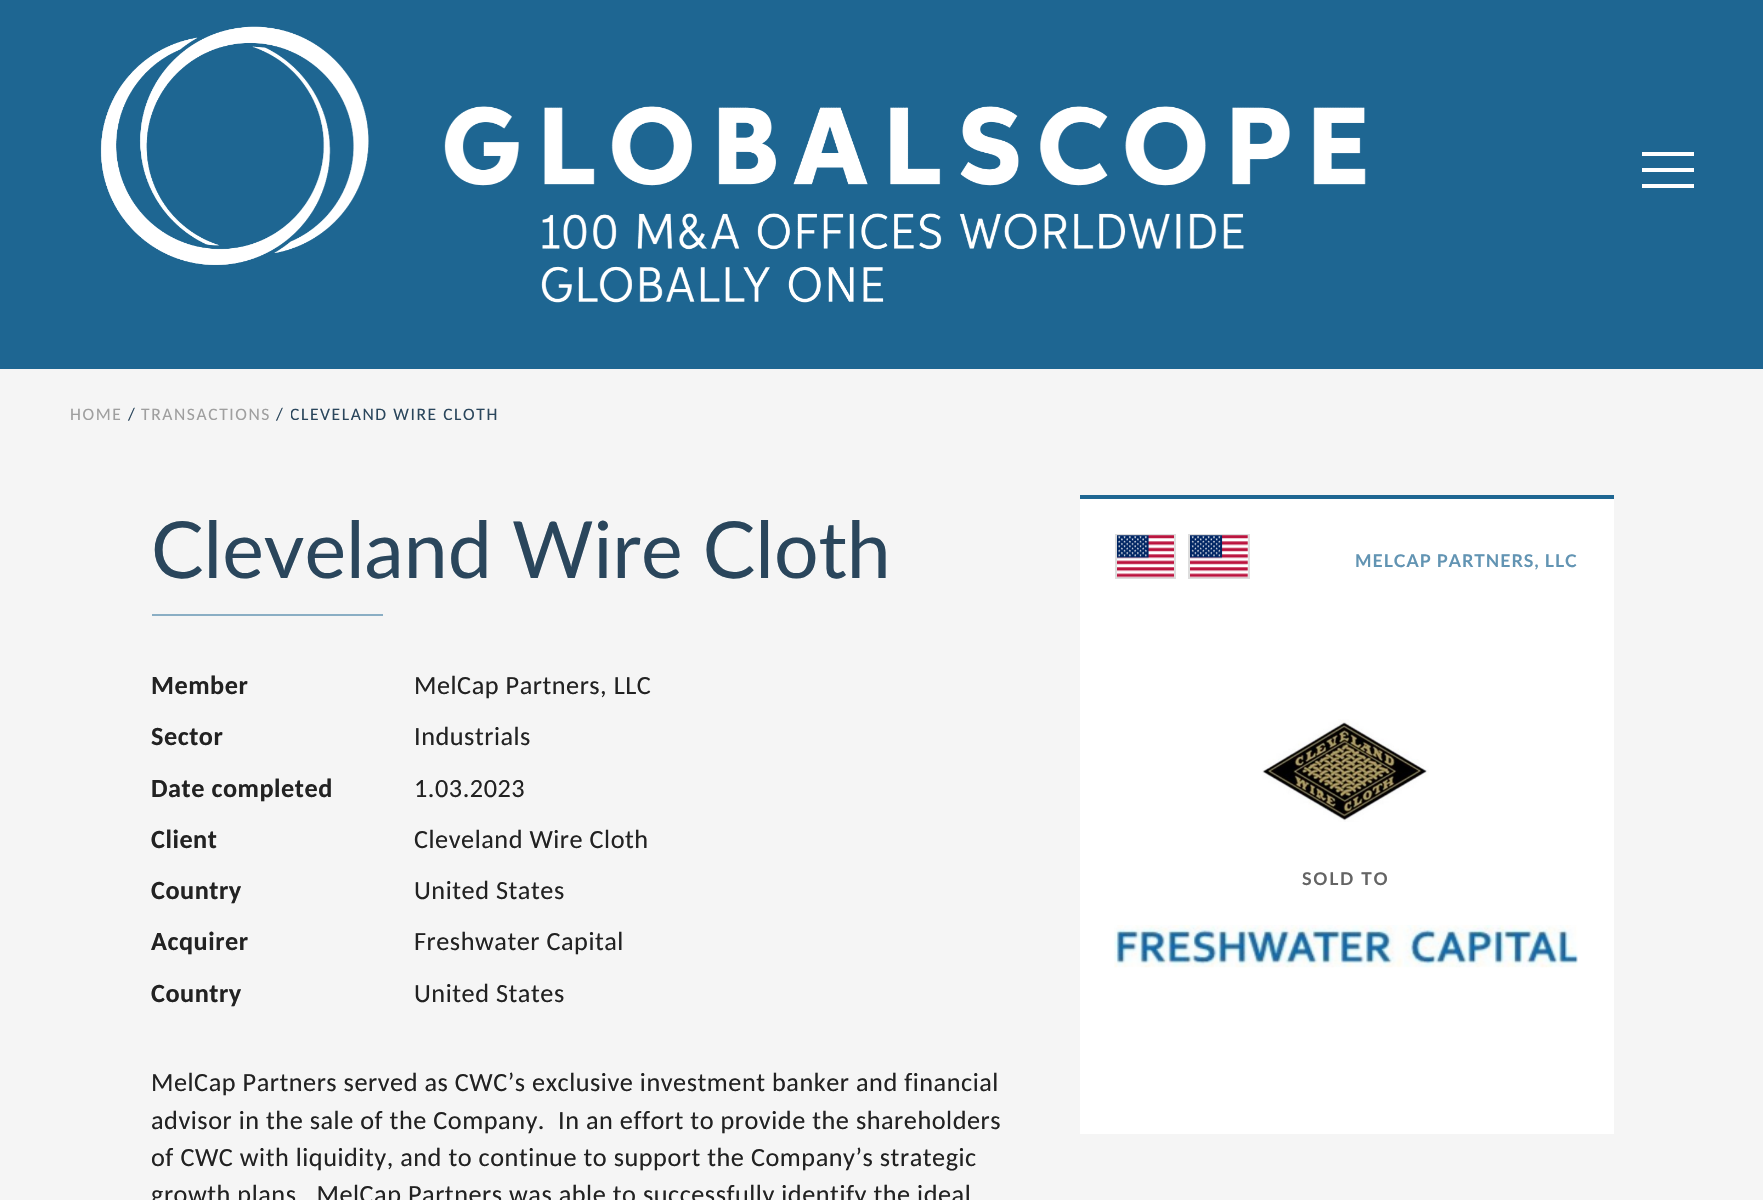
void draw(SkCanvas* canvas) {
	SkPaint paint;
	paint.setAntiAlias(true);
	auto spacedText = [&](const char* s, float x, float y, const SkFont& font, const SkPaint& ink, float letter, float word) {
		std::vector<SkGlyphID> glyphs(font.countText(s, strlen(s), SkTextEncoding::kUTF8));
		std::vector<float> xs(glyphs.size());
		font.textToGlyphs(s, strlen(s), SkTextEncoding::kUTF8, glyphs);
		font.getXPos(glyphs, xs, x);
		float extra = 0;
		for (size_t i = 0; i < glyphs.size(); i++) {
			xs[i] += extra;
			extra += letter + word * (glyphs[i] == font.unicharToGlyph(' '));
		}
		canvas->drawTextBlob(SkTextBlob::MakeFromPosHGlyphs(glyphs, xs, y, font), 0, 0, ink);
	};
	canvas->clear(0xfff5f5f5);
	paint.setColor(0xff1e6692);
	canvas->drawRect(SkRect::MakeXYWH(0, 0, 1763, 369), paint);
	canvas->drawImageRect(SkImages::DeferredFromEncodedData(SkData::MakeFromFileName("img1.png")), SkRect::MakeXYWH(100, 26, 1266, 277), SkSamplingOptions());
	paint.setColor(0xffffffff);
	canvas->drawRect(SkRect::MakeXYWH(1642, 152, 52, 4), paint);
	canvas->drawRect(SkRect::MakeXYWH(1642, 168, 52, 4), paint);
	canvas->drawRect(SkRect::MakeXYWH(1642, 184, 52, 4), paint);
	SkFont f1(fontMgr->matchFamilyStyle("Carlito", SkFontStyle::Normal()), 17.5);
	f1.setSubpixel(true);
	paint.setColor(0xff9f9f9f);
	spacedText("HOME", 70, 420, f1, paint, 1.6, 0);
	paint.setColor(0xff2a465c);
	spacedText("/", 128, 420, f1, paint, 1.6, 0);
	paint.setColor(0xff9f9f9f);
	spacedText("TRANSACTIONS", 141, 420, f1, paint, 1.6, 0);
	paint.setColor(0xff2a465c);
	spacedText("/", 276, 420, f1, paint, 1.6, 0);
	canvas->save();
	canvas->clipRect(SkRect::MakeXYWH(291, 404, 208, 21));
	spacedText("CLEVELAND WIRE CLOTH", 290, 420, f1, paint, 1.6, 0);
	canvas->restore();
	SkFont f2(fontMgr->matchFamilyStyle("Lato", SkFontStyle::Normal()), 78.75);
	f2.setSubpixel(true);
	canvas->drawString("Cleveland Wire Cloth", 151, 578, f2, paint);
	paint.setColor(0xff8aaec4);
	canvas->drawRect(SkRect::MakeXYWH(152, 614, 231, 2), paint);
	SkFont f3(fontMgr->matchFamilyStyle("Carlito", SkFontStyle::Bold()), 26.25);
	f3.setSubpixel(true);
	paint.setColor(0xff222222);
	spacedText("Member", 151, 694, f3, paint, 0.53, 0);
	SkFont f4(fontMgr->matchFamilyStyle("Carlito", SkFontStyle::Normal()), 26.25);
	f4.setSubpixel(true);
	spacedText("MelCap Partners, LLC", 414, 694, f4, paint, 0.53, 0);
	spacedText("Sector", 151, 745, f3, paint, 0.53, 0);
	spacedText("Industrials", 414, 745, f4, paint, 0.53, 0);
	spacedText("Date completed", 151, 797, f3, paint, 0.53, 0);
	spacedText("1.03.2023", 414, 797, f4, paint, 0.53, 0);
	spacedText("Client", 151, 848, f3, paint, 0.53, 0);
	spacedText("Cleveland Wire Cloth", 414, 848, f4, paint, 0.53, 0);
	spacedText("Country", 151, 899, f3, paint, 0.53, 0);
	spacedText("United States", 414, 899, f4, paint, 0.53, 0);
	spacedText("Acquirer", 151, 950, f3, paint, 0.53, 0);
	spacedText("Freshwater Capital", 414, 950, f4, paint, 0.53, 0);
	spacedText("Country", 151, 1002, f3, paint, 0.53, 0);
	spacedText("United States", 414, 1002, f4, paint, 0.53, 0);
	spacedText("MelCap Partners served as CWC’s exclusive investment banker and financial", 151, 1091, f4, paint, 0.53, 0);
	spacedText("advisor in the sale of the Company.", 151, 1129, f4, paint, 0.53, 0);
	spacedText("In an effort to provide the shareholders", 558, 1129, f4, paint, 0.53, 0);
	spacedText("of CWC with liquidity, and to continue to support the Company’s strategic", 151, 1166, f4, paint, 0.53, 0);
	spacedText("growth plans,  MelCap Partners was able to successfully identify the ideal", 151, 1203, f4, paint, 0.53, 0);
	paint.setColor(0xffffffff);
	canvas->drawRect(SkRect::MakeXYWH(1080, 499, 534, 635), paint);
	paint.setColor(0xff1e6692);
	canvas->drawRect(SkRect::MakeXYWH(1080, 495, 534, 4), paint);
	paint.setStroke(true);
	paint.setStrokeWidth(2);
	paint.setColor(0xffdddddd);
	canvas->drawRect(SkRect::MakeXYWH(1116, 535, 59, 43), paint);
	canvas->drawRect(SkRect::MakeXYWH(1189, 535, 60, 43), paint);
	canvas->drawImageRect(SkImages::DeferredFromEncodedData(SkData::MakeFromFileName("img2.png")), SkRect::MakeXYWH(1117, 535, 57, 43), SkSamplingOptions());
	canvas->drawImageRect(SkImages::DeferredFromEncodedData(SkData::MakeFromFileName("img3.png")), SkRect::MakeXYWH(1190, 535, 58, 43), SkSamplingOptions());
	SkFont f5(fontMgr->matchFamilyStyle("Lato", SkFontStyle::Bold()), 17.5);
	f5.setSubpixel(true);
	paint.setStroke(false);
	paint.setColor(0xff6294b3);
	spacedText("MELCAP PARTNERS, LLC", 1355, 567, f5, paint, 1.05, 0);
	canvas->drawImageRect(SkImages::DeferredFromEncodedData(SkData::MakeFromFileName("img4.png")), SkRect::MakeXYWH(1262, 719, 167, 103), SkSamplingOptions());
	paint.setColor(0xff646464);
	spacedText("SOLD TO", 1302, 885, f5, paint, 1.75, 0);
	canvas->drawImageRect(SkImages::DeferredFromEncodedData(SkData::MakeFromFileName("img5.png")), SkRect::MakeXYWH(1114, 925, 464, 43), SkSamplingOptions());
}
